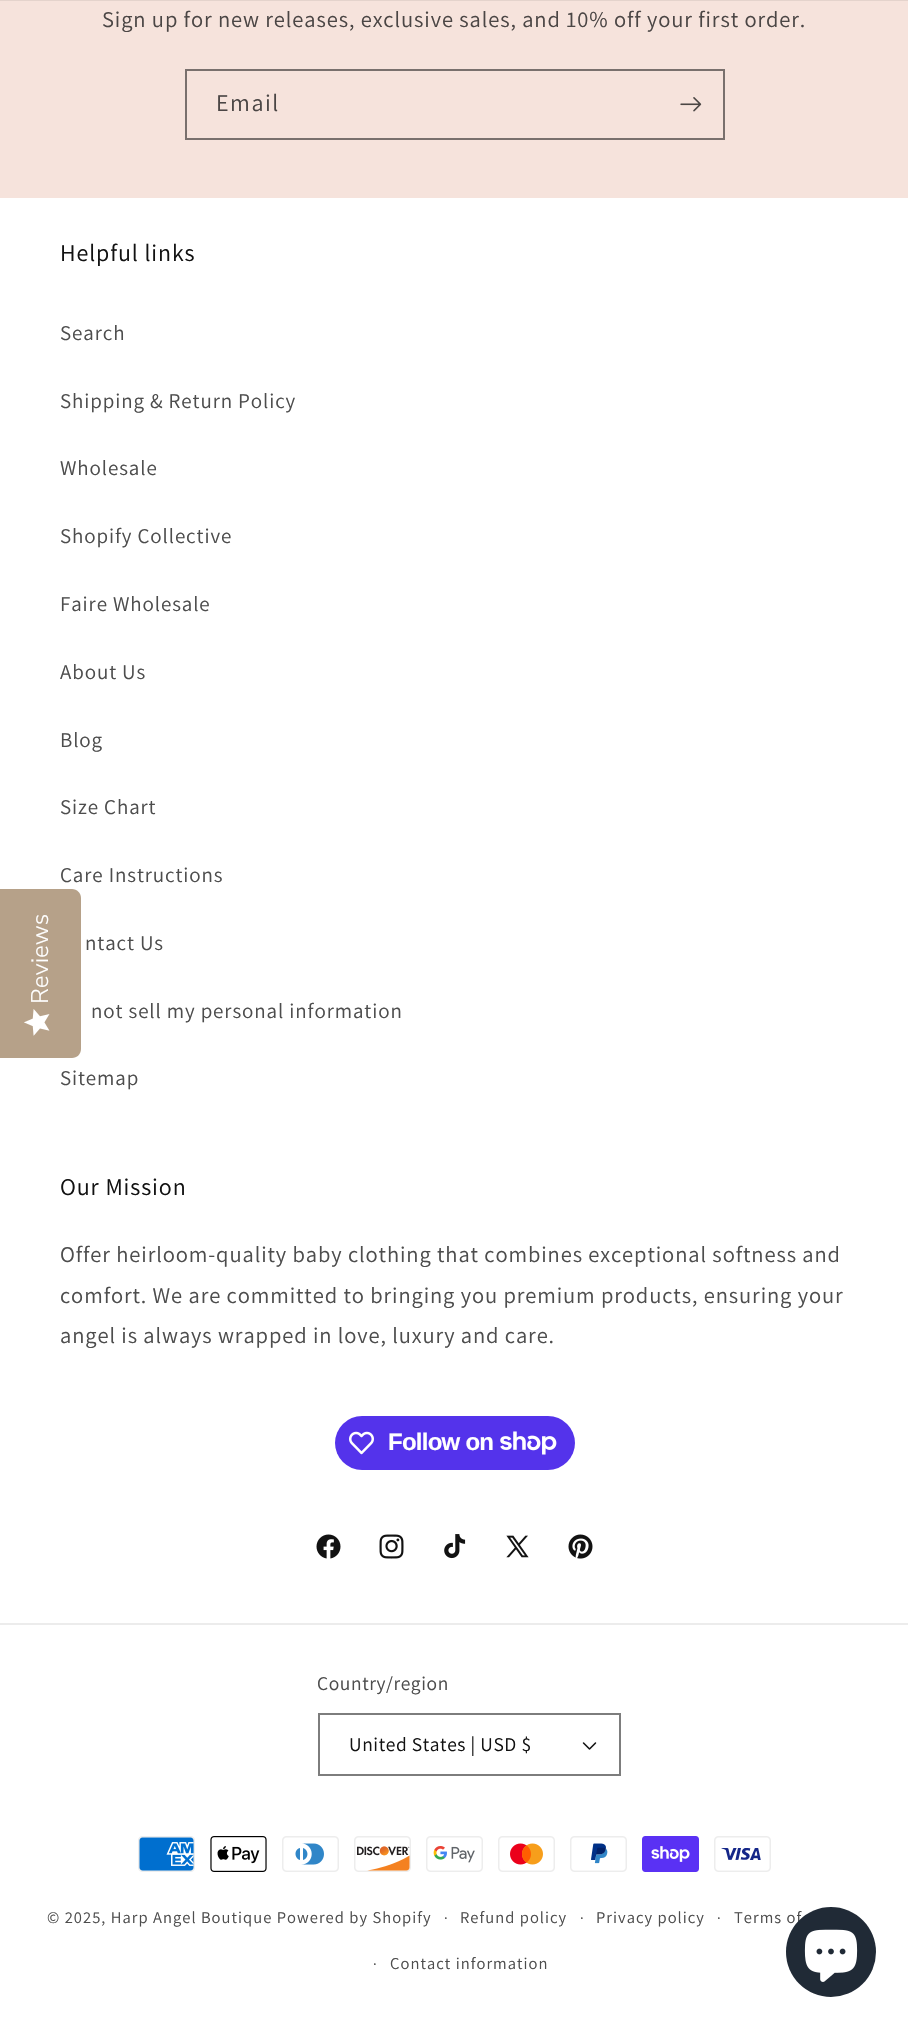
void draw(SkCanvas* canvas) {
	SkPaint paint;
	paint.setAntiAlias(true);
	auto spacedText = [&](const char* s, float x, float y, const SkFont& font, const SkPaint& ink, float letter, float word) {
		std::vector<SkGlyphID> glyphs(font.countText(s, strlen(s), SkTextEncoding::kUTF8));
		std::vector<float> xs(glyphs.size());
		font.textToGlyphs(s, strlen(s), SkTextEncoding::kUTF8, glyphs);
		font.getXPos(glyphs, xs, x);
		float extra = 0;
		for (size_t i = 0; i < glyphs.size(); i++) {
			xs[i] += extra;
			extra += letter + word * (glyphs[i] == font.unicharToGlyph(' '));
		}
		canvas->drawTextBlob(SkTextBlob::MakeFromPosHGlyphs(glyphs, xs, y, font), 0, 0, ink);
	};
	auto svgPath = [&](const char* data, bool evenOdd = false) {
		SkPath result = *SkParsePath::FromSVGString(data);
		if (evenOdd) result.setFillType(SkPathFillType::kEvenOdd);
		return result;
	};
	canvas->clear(0xffffffff);
	paint.setColor(0xffe4d3cc);
	canvas->drawRect(SkRect::MakeXYWH(0, 0, 908, 1), paint);
	paint.setColor(0xfff6e3dc);
	canvas->drawRect(SkRect::MakeXYWH(0, 1, 908, 197), paint);
	SkFont f1(fontMgr->matchFamilyStyle("Assistant", SkFontStyle::Normal()), 22.5);
	f1.setSubpixel(true);
	paint.setColor(0xff4b4645);
	spacedText("Sign up for new releases, exclusive sales, and 10% off your first order.", 102, 27, f1, paint, 0.9, 0);
	paint.setStroke(true);
	paint.setStrokeWidth(2);
	paint.setColor(0xff79706d);
	canvas->drawRect(SkRect::MakeXYWH(186, 70, 538, 69), paint);
	SkFont f2(fontMgr->matchFamilyStyle("Assistant", SkFontStyle::Normal()), 24);
	f2.setSubpixel(true);
	paint.setStroke(false);
	paint.setColor(0xff4b4645);
	spacedText("Email", 216, 111, f2, paint, 1.5, 0);
	canvas->drawImageRect(SkImages::DeferredFromEncodedData(SkData::MakeFromFileName("img1.png")), SkRect::MakeXYWH(680, 97, 22, 15), SkSamplingOptions());
	paint.setColor(0xffb6a189);
	canvas->drawPath(svgPath("M0 1058V889H72C77 889 81 893 81 898V1049C81 1054 77 1058 72 1058Z"), paint);
	SkFont f3(fontMgr->matchFamilyStyle("Nunito Sans", SkFontStyle(300, SkFontStyle::kNormal_Width, SkFontStyle::kUpright_Slant)), 24);
	f3.setSubpixel(true);
	paint.setColor(0xffffffff);
	canvas->save();
	canvas->rotate(-90, 48, 1004);
	canvas->drawString("Reviews", 48, 1004, f3, paint);
	canvas->restore();
	canvas->drawImageRect(SkImages::DeferredFromEncodedData(SkData::MakeFromFileName("img2.png")), SkRect::MakeXYWH(24, 1009, 26, 27), SkSamplingOptions());
	paint.setColor(0xff121212);
	spacedText("Helpful links", 60, 261, f2, paint, 0.9, 0);
	SkFont f4(fontMgr->matchFamilyStyle("Assistant", SkFontStyle::Normal()), 21);
	f4.setSubpixel(true);
	paint.setColor(0xff4d4d4d);
	spacedText("Search", 60, 340, f4, paint, 0.9, 0);
	spacedText("Shipping & Return Policy", 60, 408, f4, paint, 0.9, 0);
	spacedText("Wholesale", 60, 475, f4, paint, 0.9, 0);
	spacedText("Shopify Collective", 60, 543, f4, paint, 0.9, 0);
	spacedText("Faire Wholesale", 60, 611, f4, paint, 0.9, 0);
	spacedText("About Us", 60, 679, f4, paint, 0.9, 0);
	spacedText("Blog", 60, 747, f4, paint, 0.9, 0);
	spacedText("Size Chart", 60, 814, f4, paint, 0.9, 0);
	spacedText("Care Instructions", 60, 882, f4, paint, 0.9, 0);
	spacedText("ntact Us", 85, 950, f4, paint, 0.9, 0);
	spacedText("not sell my personal information", 91, 1018, f4, paint, 0.9, 0);
	spacedText("Sitemap", 60, 1085, f4, paint, 0.9, 0);
	paint.setColor(0xff121212);
	spacedText("Our Mission", 60, 1195, f2, paint, 0.9, 0);
	paint.setColor(0xff4d4d4d);
	spacedText("Offer heirloom-quality baby clothing that combines exceptional softness and", 60, 1262, f1, paint, 0.9, 0);
	spacedText("comfort. We are committed to bringing you premium products, ensuring your", 60, 1303, f1, paint, 0.9, 0);
	spacedText("angel is always wrapped in love, luxury and care.", 60, 1343, f1, paint, 0.9, 0);
	paint.setColor(0xff5433eb);
	canvas->drawRoundRect(SkRect::MakeXYWH(335, 1416, 240, 54), 27, 27, paint);
	canvas->drawImageRect(SkImages::DeferredFromEncodedData(SkData::MakeFromFileName("img3.png")), SkRect::MakeXYWH(349, 1431, 25, 24), SkSamplingOptions());
	SkFont f5(fontMgr->matchFamilyStyle("Liberation Sans", SkFontStyle::Bold()), 24);
	f5.setSubpixel(true);
	paint.setColor(0xffffffff);
	spacedText("Follow on", 388, 1450, f5, paint, -0.75, 0);
	canvas->drawImageRect(SkImages::DeferredFromEncodedData(SkData::MakeFromFileName("img4.png")), SkRect::MakeXYWH(500, 1431, 57, 24), SkSamplingOptions());
	canvas->drawImageRect(SkImages::DeferredFromEncodedData(SkData::MakeFromFileName("img5.png")), SkRect::MakeXYWH(316, 1534, 25, 25), SkSamplingOptions());
	canvas->drawImageRect(SkImages::DeferredFromEncodedData(SkData::MakeFromFileName("img6.png")), SkRect::MakeXYWH(379, 1534, 25, 25), SkSamplingOptions());
	canvas->drawImageRect(SkImages::DeferredFromEncodedData(SkData::MakeFromFileName("img7.png")), SkRect::MakeXYWH(444, 1534, 22, 25), SkSamplingOptions());
	canvas->drawImageRect(SkImages::DeferredFromEncodedData(SkData::MakeFromFileName("img8.png")), SkRect::MakeXYWH(506, 1535, 23, 23), SkSamplingOptions());
	canvas->drawImageRect(SkImages::DeferredFromEncodedData(SkData::MakeFromFileName("img9.png")), SkRect::MakeXYWH(568, 1534, 25, 25), SkSamplingOptions());
	paint.setColor(0xffececec);
	canvas->drawRect(SkRect::MakeXYWH(0, 1623, 908, 2), paint);
	SkFont f6(fontMgr->matchFamilyStyle("Assistant", SkFontStyle::Normal()), 19.5);
	f6.setSubpixel(true);
	paint.setColor(0xff4d4d4d);
	spacedText("Country/region", 317, 1690, f6, paint, 0.6, 0);
	canvas->drawImageRect(SkImages::DeferredFromEncodedData(SkData::MakeFromFileName("img10.png")), SkRect::MakeXYWH(582, 1742, 15, 8), SkSamplingOptions());
	paint.setStroke(true);
	paint.setColor(0xff7d7d7d);
	canvas->drawRect(SkRect::MakeXYWH(319, 1714, 301, 61), paint);
	paint.setStroke(false);
	paint.setColor(0xff121212);
	spacedText("United States | USD $", 349, 1751, f6, paint, 0.6, 0);
	canvas->drawImageRect(SkImages::DeferredFromEncodedData(SkData::MakeFromFileName("img11.png")), SkRect::MakeXYWH(138, 1836, 57, 36), SkSamplingOptions());
	canvas->drawImageRect(SkImages::DeferredFromEncodedData(SkData::MakeFromFileName("img12.png")), SkRect::MakeXYWH(210, 1836, 57, 36), SkSamplingOptions());
	canvas->drawImageRect(SkImages::DeferredFromEncodedData(SkData::MakeFromFileName("img13.png")), SkRect::MakeXYWH(282, 1836, 57, 36), SkSamplingOptions());
	canvas->drawImageRect(SkImages::DeferredFromEncodedData(SkData::MakeFromFileName("img14.png")), SkRect::MakeXYWH(354, 1836, 57, 36), SkSamplingOptions());
	canvas->drawImageRect(SkImages::DeferredFromEncodedData(SkData::MakeFromFileName("img15.png")), SkRect::MakeXYWH(426, 1836, 57, 36), SkSamplingOptions());
	canvas->drawImageRect(SkImages::DeferredFromEncodedData(SkData::MakeFromFileName("img16.png")), SkRect::MakeXYWH(498, 1836, 57, 36), SkSamplingOptions());
	canvas->drawImageRect(SkImages::DeferredFromEncodedData(SkData::MakeFromFileName("img17.png")), SkRect::MakeXYWH(570, 1836, 57, 36), SkSamplingOptions());
	canvas->drawImageRect(SkImages::DeferredFromEncodedData(SkData::MakeFromFileName("img18.png")), SkRect::MakeXYWH(642, 1836, 57, 36), SkSamplingOptions());
	canvas->drawImageRect(SkImages::DeferredFromEncodedData(SkData::MakeFromFileName("img19.png")), SkRect::MakeXYWH(714, 1836, 57, 36), SkSamplingOptions());
	SkFont f7(fontMgr->matchFamilyStyle("Assistant", SkFontStyle::Normal()), 16.5);
	f7.setSubpixel(true);
	paint.setColor(0xff4d4d4d);
	spacedText("© 2025, Harp Angel Boutique Powered by Shopify", 47, 1923, f7, paint, 1.05, 0);
	SkFont f8(fontMgr->matchFamilyStyle("Assistant", SkFontStyle::Normal()), 15);
	f8.setSubpixel(true);
	spacedText("·", 444, 1923, f8, paint, 1.05, 0);
	spacedText("Refund policy", 460, 1923, f7, paint, 1.05, 0);
	spacedText("·", 580, 1923, f8, paint, 1.05, 0);
	spacedText("Privacy policy", 596, 1923, f7, paint, 1.05, 0);
	spacedText("·", 717, 1923, f8, paint, 1.05, 0);
	spacedText("Terms of", 734, 1923, f7, paint, 1.05, 0);
	spacedText("·", 373, 1969, f8, paint, 1.05, 0);
	spacedText("Contact information", 390, 1969, f7, paint, 1.05, 0);
	paint.setColor(0xff202a36);
	canvas->drawCircle(831, 1952, 45, paint);
	canvas->drawImageRect(SkImages::DeferredFromEncodedData(SkData::MakeFromFileName("img20.png")), SkRect::MakeXYWH(804, 1929, 54, 53), SkSamplingOptions());
}
